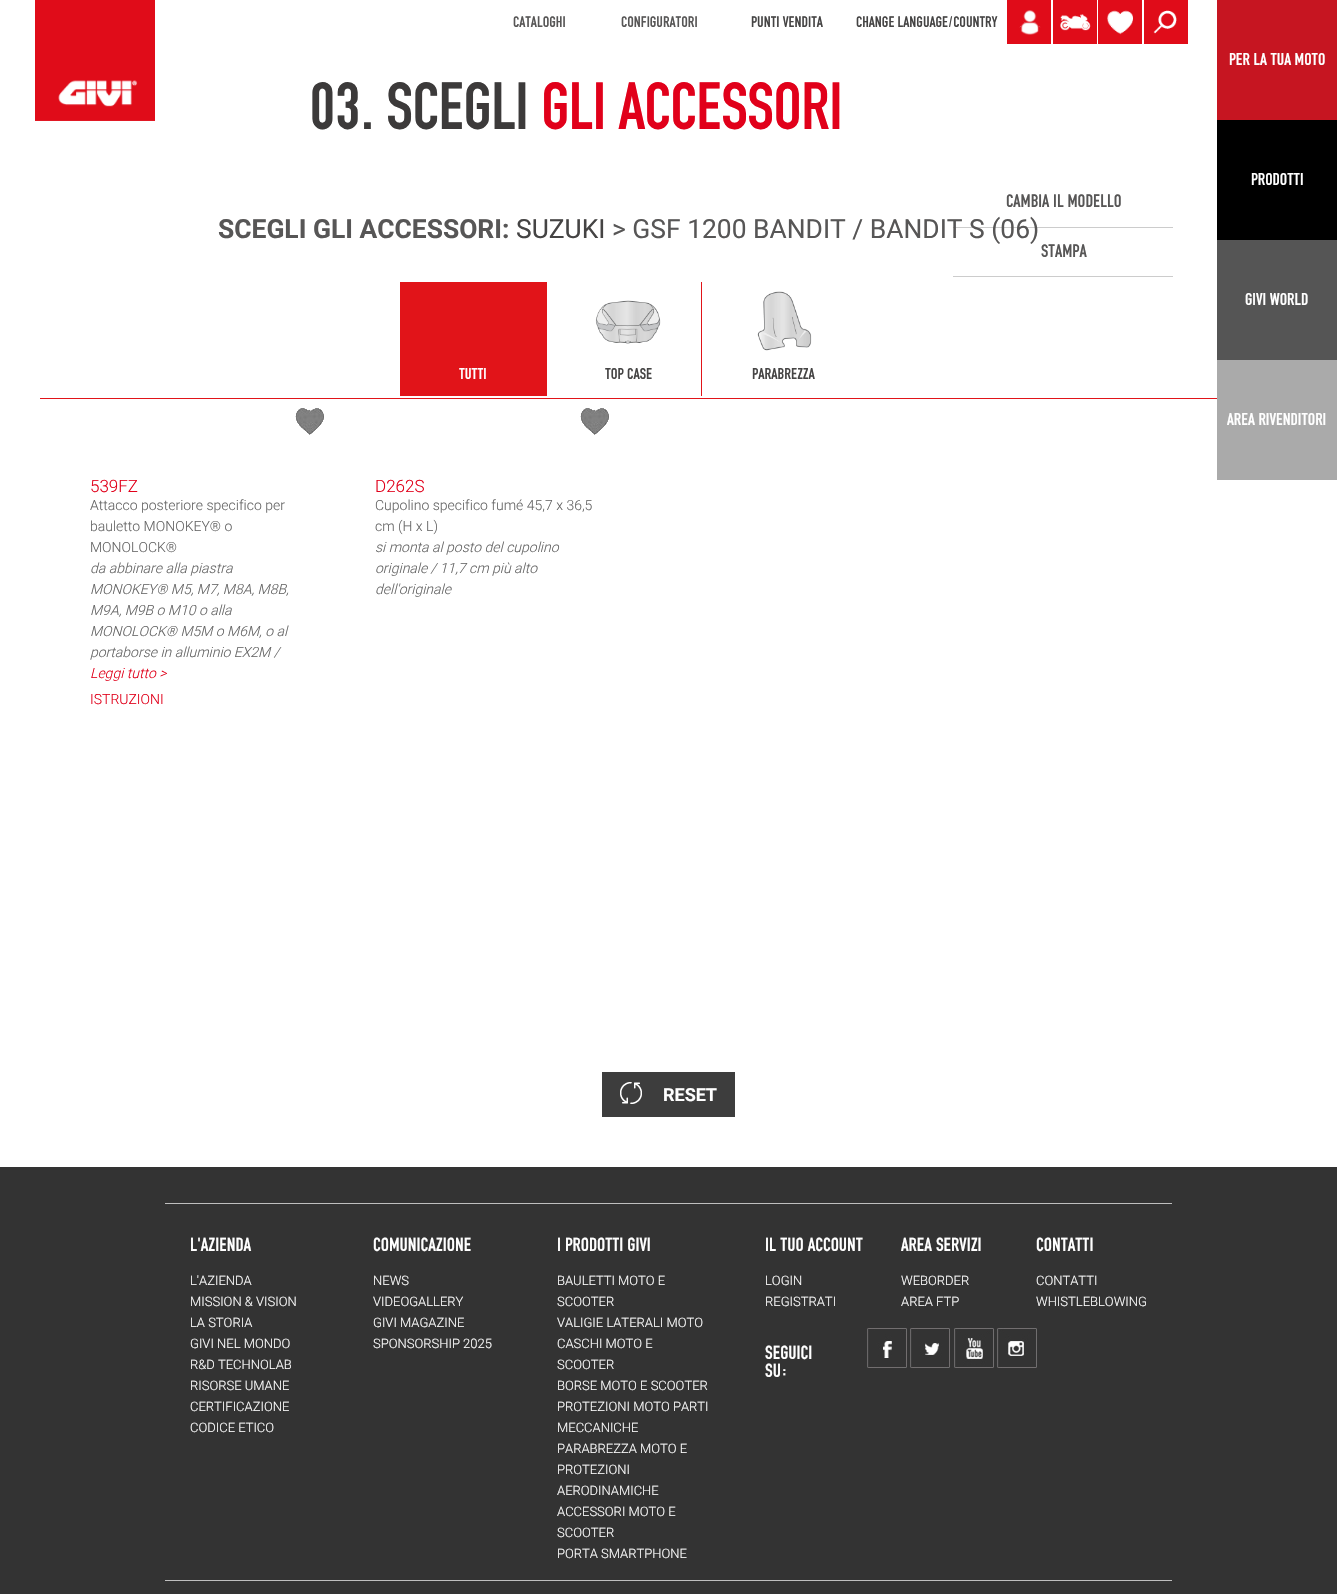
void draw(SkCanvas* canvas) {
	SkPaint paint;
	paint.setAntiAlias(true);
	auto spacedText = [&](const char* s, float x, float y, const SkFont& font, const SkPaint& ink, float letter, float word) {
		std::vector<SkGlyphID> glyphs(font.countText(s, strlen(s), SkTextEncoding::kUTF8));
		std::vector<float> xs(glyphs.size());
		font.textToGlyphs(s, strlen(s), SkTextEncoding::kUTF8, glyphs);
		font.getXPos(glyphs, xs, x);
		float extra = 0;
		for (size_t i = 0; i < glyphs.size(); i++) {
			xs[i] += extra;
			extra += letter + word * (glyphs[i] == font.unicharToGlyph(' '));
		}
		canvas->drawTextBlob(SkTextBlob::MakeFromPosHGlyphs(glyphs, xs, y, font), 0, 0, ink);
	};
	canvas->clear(0xffffffff);
	canvas->drawImageRect(SkImages::DeferredFromEncodedData(SkData::MakeFromFileName("img1.png")), SkRect::MakeXYWH(35, 0, 120, 121), SkSamplingOptions());
	SkFont f1(fontMgr->matchFamilyStyle("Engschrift", SkFontStyle::Normal()), 16);
	f1.setSubpixel(true);
	paint.setColor(0xff575656);
	canvas->drawString("CATALOGHI", 513, 27, f1, paint);
	canvas->drawString("CONFIGURATORI", 621, 27, f1, paint);
	paint.setColor(0xff454444);
	canvas->drawString("PUNTI VENDITA", 751, 27, f1, paint);
	canvas->drawString("CHANGE LANGUAGE/COUNTRY", 856, 27, f1, paint);
	paint.setColor(0xffe00c19);
	canvas->drawRect(SkRect::MakeXYWH(1007, 0, 44, 44), paint);
	canvas->drawImageRect(SkImages::DeferredFromEncodedData(SkData::MakeFromFileName("img2.png")), SkRect::MakeXYWH(1019, 10, 22, 25), SkSamplingOptions());
	canvas->drawRect(SkRect::MakeXYWH(1053, 0, 44, 44), paint);
	canvas->drawImageRect(SkImages::DeferredFromEncodedData(SkData::MakeFromFileName("img3.png")), SkRect::MakeXYWH(1060, 14, 31, 17), SkSamplingOptions());
	canvas->drawRect(SkRect::MakeXYWH(1098, 0, 44, 44), paint);
	canvas->drawImageRect(SkImages::DeferredFromEncodedData(SkData::MakeFromFileName("img4.png")), SkRect::MakeXYWH(1107, 10, 26, 25), SkSamplingOptions());
	canvas->drawRect(SkRect::MakeXYWH(1144, 0, 44, 44), paint);
	canvas->drawImageRect(SkImages::DeferredFromEncodedData(SkData::MakeFromFileName("img5.png")), SkRect::MakeXYWH(1153, 10, 24, 24), SkSamplingOptions());
	paint.setColor(0xffc61521);
	canvas->drawRect(SkRect::MakeXYWH(1217, 0, 120, 120), paint);
	SkFont f2(fontMgr->matchFamilyStyle("Engschrift", SkFontStyle::Normal()), 18);
	f2.setSubpixel(true);
	paint.setColor(0xffffffff);
	canvas->drawString("PER LA TUA MOTO", 1229, 65, f2, paint);
	paint.setColor(0xff000000);
	canvas->drawRect(SkRect::MakeXYWH(1217, 120, 120, 120), paint);
	paint.setColor(0xffffffff);
	canvas->drawString("PRODOTTI", 1251, 185, f2, paint);
	paint.setColor(0xff555555);
	canvas->drawRect(SkRect::MakeXYWH(1217, 240, 120, 120), paint);
	paint.setColor(0xffffffff);
	canvas->drawString("GIVI WORLD", 1245, 305, f2, paint);
	paint.setColor(0xffaaaaaa);
	canvas->drawRect(SkRect::MakeXYWH(1217, 360, 120, 120), paint);
	paint.setColor(0xffffffff);
	canvas->drawString("AREA RIVENDITORI", 1227, 425, f2, paint);
	SkFont f3(fontMgr->matchFamilyStyle("Engschrift", SkFontStyle::Normal()), 70);
	f3.setSubpixel(true);
	paint.setColor(0xff3c3a3a);
	spacedText("03. SCEGLI", 309, 129, f3, paint, -1, 0);
	paint.setColor(0xffe1001a);
	spacedText("GLI ACCESSORI", 541, 129, f3, paint, -1, 0);
	SkFont f4(fontMgr->matchFamilyStyle("Roboto", SkFontStyle::Bold()), 26.4);
	f4.setSubpixel(true);
	paint.setColor(0xff575656);
	canvas->drawString("SCEGLI GLI ACCESSORI:", 218, 238, f4, paint);
	SkFont f5(fontMgr->matchFamilyStyle("Roboto", SkFontStyle::Normal()), 26.4);
	f5.setSubpixel(true);
	paint.setColor(0xff454444);
	canvas->drawString("SUZUKI", 516, 238, f5, paint);
	paint.setColor(0xffcccccc);
	canvas->drawRect(SkRect::MakeXYWH(953, 227, 220, 1), paint);
	paint.setColor(0xff575656);
	canvas->drawString("> GSF 1200 BANDIT / BANDIT S (06)", 612, 238, f5, paint);
	paint.setColor(0xffe11419);
	canvas->drawRect(SkRect::MakeXYWH(40, 398, 1177, 1), paint);
	canvas->drawRect(SkRect::MakeXYWH(400, 282, 147, 114), paint);
	SkFont f6(fontMgr->matchFamilyStyle("Engschrift", SkFontStyle::Normal()), 16.5);
	f6.setSubpixel(true);
	paint.setColor(0xffffffff);
	canvas->drawString("TUTTI", 459, 379, f6, paint);
	paint.setColor(0xffe11419);
	canvas->drawRect(SkRect::MakeXYWH(701, 282, 1, 114), paint);
	canvas->drawImageRect(SkImages::DeferredFromEncodedData(SkData::MakeFromFileName("img6.png")), SkRect::MakeXYWH(595, 300, 66, 44), SkSamplingOptions());
	paint.setColor(0xff454444);
	canvas->drawString("TOP CASE", 605, 379, f6, paint);
	canvas->drawImageRect(SkImages::DeferredFromEncodedData(SkData::MakeFromFileName("img7.png")), SkRect::MakeXYWH(757, 291, 55, 60), SkSamplingOptions());
	canvas->drawString("PARABREZZA", 752, 379, f6, paint);
	canvas->drawImageRect(SkImages::DeferredFromEncodedData(SkData::MakeFromFileName("img8.png")), SkRect::MakeXYWH(295, 408, 29, 27), SkSamplingOptions());
	SkFont f7(fontMgr->matchFamilyStyle("Roboto", SkFontStyle(300, SkFontStyle::kNormal_Width, SkFontStyle::kUpright_Slant)), 17);
	f7.setSubpixel(true);
	paint.setColor(0xffe1001a);
	canvas->drawString("539FZ", 90, 492, f7, paint);
	SkFont f8(fontMgr->matchFamilyStyle("Roboto", SkFontStyle(300, SkFontStyle::kNormal_Width, SkFontStyle::kUpright_Slant)), 14);
	f8.setSubpixel(true);
	paint.setColor(0xff666666);
	canvas->drawString("Attacco posteriore specifico per", 90, 510, f8, paint);
	canvas->drawString("bauletto MONOKEY® o", 90, 531, f8, paint);
	canvas->drawString("MONOLOCK®", 90, 552, f8, paint);
	SkFont f9(fontMgr->matchFamilyStyle("Roboto", SkFontStyle(300, SkFontStyle::kNormal_Width, SkFontStyle::kItalic_Slant)), 14);
	f9.setSubpixel(true);
	canvas->drawString("da abbinare alla piastra", 90, 573, f9, paint);
	canvas->drawString("MONOKEY® M5, M7, M8A, M8B,", 90, 594, f9, paint);
	canvas->drawString("M9A, M9B o M10 o alla", 90, 615, f9, paint);
	canvas->drawString("MONOLOCK® M5M o M6M, o al", 90, 636, f9, paint);
	canvas->drawString("portaborse in alluminio EX2M /", 90, 657, f9, paint);
	paint.setColor(0xffe1001a);
	canvas->drawString("Leggi tutto >", 90, 678, f9, paint);
	canvas->drawString("ISTRUZIONI", 90, 704, f8, paint);
	canvas->drawImageRect(SkImages::DeferredFromEncodedData(SkData::MakeFromFileName("img8.png")), SkRect::MakeXYWH(580, 408, 29, 27), SkSamplingOptions());
	canvas->drawString("D262S", 375, 492, f7, paint);
	paint.setColor(0xff666666);
	canvas->drawString("Cupolino specifico fumé 45,7 x 36,5", 375, 510, f8, paint);
	canvas->drawString("cm (H x L)", 375, 531, f8, paint);
	canvas->drawString("si monta al posto del cupolino", 375, 552, f9, paint);
	canvas->drawString("originale / 11,7 cm più alto", 375, 573, f9, paint);
	canvas->drawString("dell'originale", 375, 594, f9, paint);
	SkFont f10(fontMgr->matchFamilyStyle("Engschrift", SkFontStyle::Normal()), 19);
	f10.setSubpixel(true);
	paint.setColor(0xff575656);
	canvas->drawString("CAMBIA IL MODELLO", 1006, 207, f10, paint);
	paint.setColor(0xffcccccc);
	canvas->drawRect(SkRect::MakeXYWH(953, 276, 220, 1), paint);
	paint.setColor(0xff575656);
	canvas->drawString("STAMPA", 1041, 257, f10, paint);
	paint.setColor(0xff3d3d3d);
	canvas->drawRect(SkRect::MakeXYWH(602, 1072, 133, 45), paint);
	canvas->drawImageRect(SkImages::DeferredFromEncodedData(SkData::MakeFromFileName("img9.png")), SkRect::MakeXYWH(620, 1082, 22, 22), SkSamplingOptions());
	SkFont f11(fontMgr->matchFamilyStyle("Roboto", SkFontStyle::Bold()), 18);
	f11.setSubpixel(true);
	paint.setColor(0xffffffff);
	canvas->drawString("RESET", 663, 1101, f11, paint);
	paint.setColor(0xff333333);
	canvas->drawRect(SkRect::MakeXYWH(0, 1167, 1337, 427), paint);
	paint.setColor(0xffbfbfbf);
	canvas->drawRect(SkRect::MakeXYWH(165, 1203, 1007, 1), paint);
	SkFont f12(fontMgr->matchFamilyStyle("Engschrift", SkFontStyle::Normal()), 20);
	f12.setSubpixel(true);
	paint.setColor(0xffffffff);
	canvas->drawString("L'AZIENDA", 190, 1251, f12, paint);
	SkFont f13(fontMgr->matchFamilyStyle("Roboto", SkFontStyle(300, SkFontStyle::kNormal_Width, SkFontStyle::kUpright_Slant)), 13);
	f13.setSubpixel(true);
	canvas->drawString("L'AZIENDA", 190, 1285, f13, paint);
	canvas->drawString("MISSION & VISION", 190, 1306, f13, paint);
	canvas->drawString("LA STORIA", 190, 1327, f13, paint);
	canvas->drawString("GIVI NEL MONDO", 190, 1348, f13, paint);
	canvas->drawString("R&D TECHNOLAB", 190, 1369, f13, paint);
	canvas->drawString("RISORSE UMANE", 190, 1390, f13, paint);
	canvas->drawString("CERTIFICAZIONE", 190, 1411, f13, paint);
	canvas->drawString("CODICE ETICO", 190, 1432, f13, paint);
	canvas->drawString("COMUNICAZIONE", 373, 1251, f12, paint);
	canvas->drawString("NEWS", 373, 1285, f13, paint);
	canvas->drawString("VIDEOGALLERY", 373, 1306, f13, paint);
	canvas->drawString("GIVI MAGAZINE", 373, 1327, f13, paint);
	canvas->drawString("SPONSORSHIP 2025", 373, 1348, f13, paint);
	canvas->drawString("I PRODOTTI GIVI", 557, 1251, f12, paint);
	canvas->drawString("BAULETTI MOTO E", 557, 1285, f13, paint);
	canvas->drawString("SCOOTER", 557, 1306, f13, paint);
	canvas->drawString("VALIGIE LATERALI MOTO", 557, 1327, f13, paint);
	canvas->drawString("CASCHI MOTO E", 557, 1348, f13, paint);
	canvas->drawString("SCOOTER", 557, 1369, f13, paint);
	canvas->drawString("BORSE MOTO E SCOOTER", 557, 1390, f13, paint);
	canvas->drawString("PROTEZIONI MOTO PARTI", 557, 1411, f13, paint);
	canvas->drawString("MECCANICHE", 557, 1432, f13, paint);
	canvas->drawString("PARABREZZA MOTO E", 557, 1453, f13, paint);
	canvas->drawString("PROTEZIONI", 557, 1474, f13, paint);
	canvas->drawString("AERODINAMICHE", 557, 1495, f13, paint);
	canvas->drawString("ACCESSORI MOTO E", 557, 1516, f13, paint);
	canvas->drawString("SCOOTER", 557, 1537, f13, paint);
	canvas->drawString("PORTA SMARTPHONE", 557, 1558, f13, paint);
	canvas->drawString("IL TUO ACCOUNT", 765, 1251, f12, paint);
	canvas->drawString("LOGIN", 765, 1285, f13, paint);
	canvas->drawString("REGISTRATI", 765, 1306, f13, paint);
	canvas->drawString("AREA SERVIZI", 901, 1251, f12, paint);
	canvas->drawString("WEBORDER", 901, 1285, f13, paint);
	canvas->drawString("AREA FTP", 901, 1306, f13, paint);
	canvas->drawString("CONTATTI", 1036, 1251, f12, paint);
	canvas->drawString("CONTATTI", 1036, 1285, f13, paint);
	canvas->drawString("WHISTLEBLOWING", 1036, 1306, f13, paint);
	canvas->drawString("SEGUICI", 765, 1359, f12, paint);
	canvas->drawString("SU:", 765, 1377, f12, paint);
	canvas->drawImageRect(SkImages::DeferredFromEncodedData(SkData::MakeFromFileName("img10.png")), SkRect::MakeXYWH(867, 1328, 40, 40), SkSamplingOptions());
	canvas->drawImageRect(SkImages::DeferredFromEncodedData(SkData::MakeFromFileName("img11.png")), SkRect::MakeXYWH(910, 1328, 40, 40), SkSamplingOptions());
	canvas->drawImageRect(SkImages::DeferredFromEncodedData(SkData::MakeFromFileName("img12.png")), SkRect::MakeXYWH(954, 1328, 40, 40), SkSamplingOptions());
	canvas->drawImageRect(SkImages::DeferredFromEncodedData(SkData::MakeFromFileName("img13.png")), SkRect::MakeXYWH(997, 1328, 40, 40), SkSamplingOptions());
	paint.setColor(0xffbfbfbf);
	canvas->drawRect(SkRect::MakeXYWH(165, 1580, 1007, 1), paint);
}
